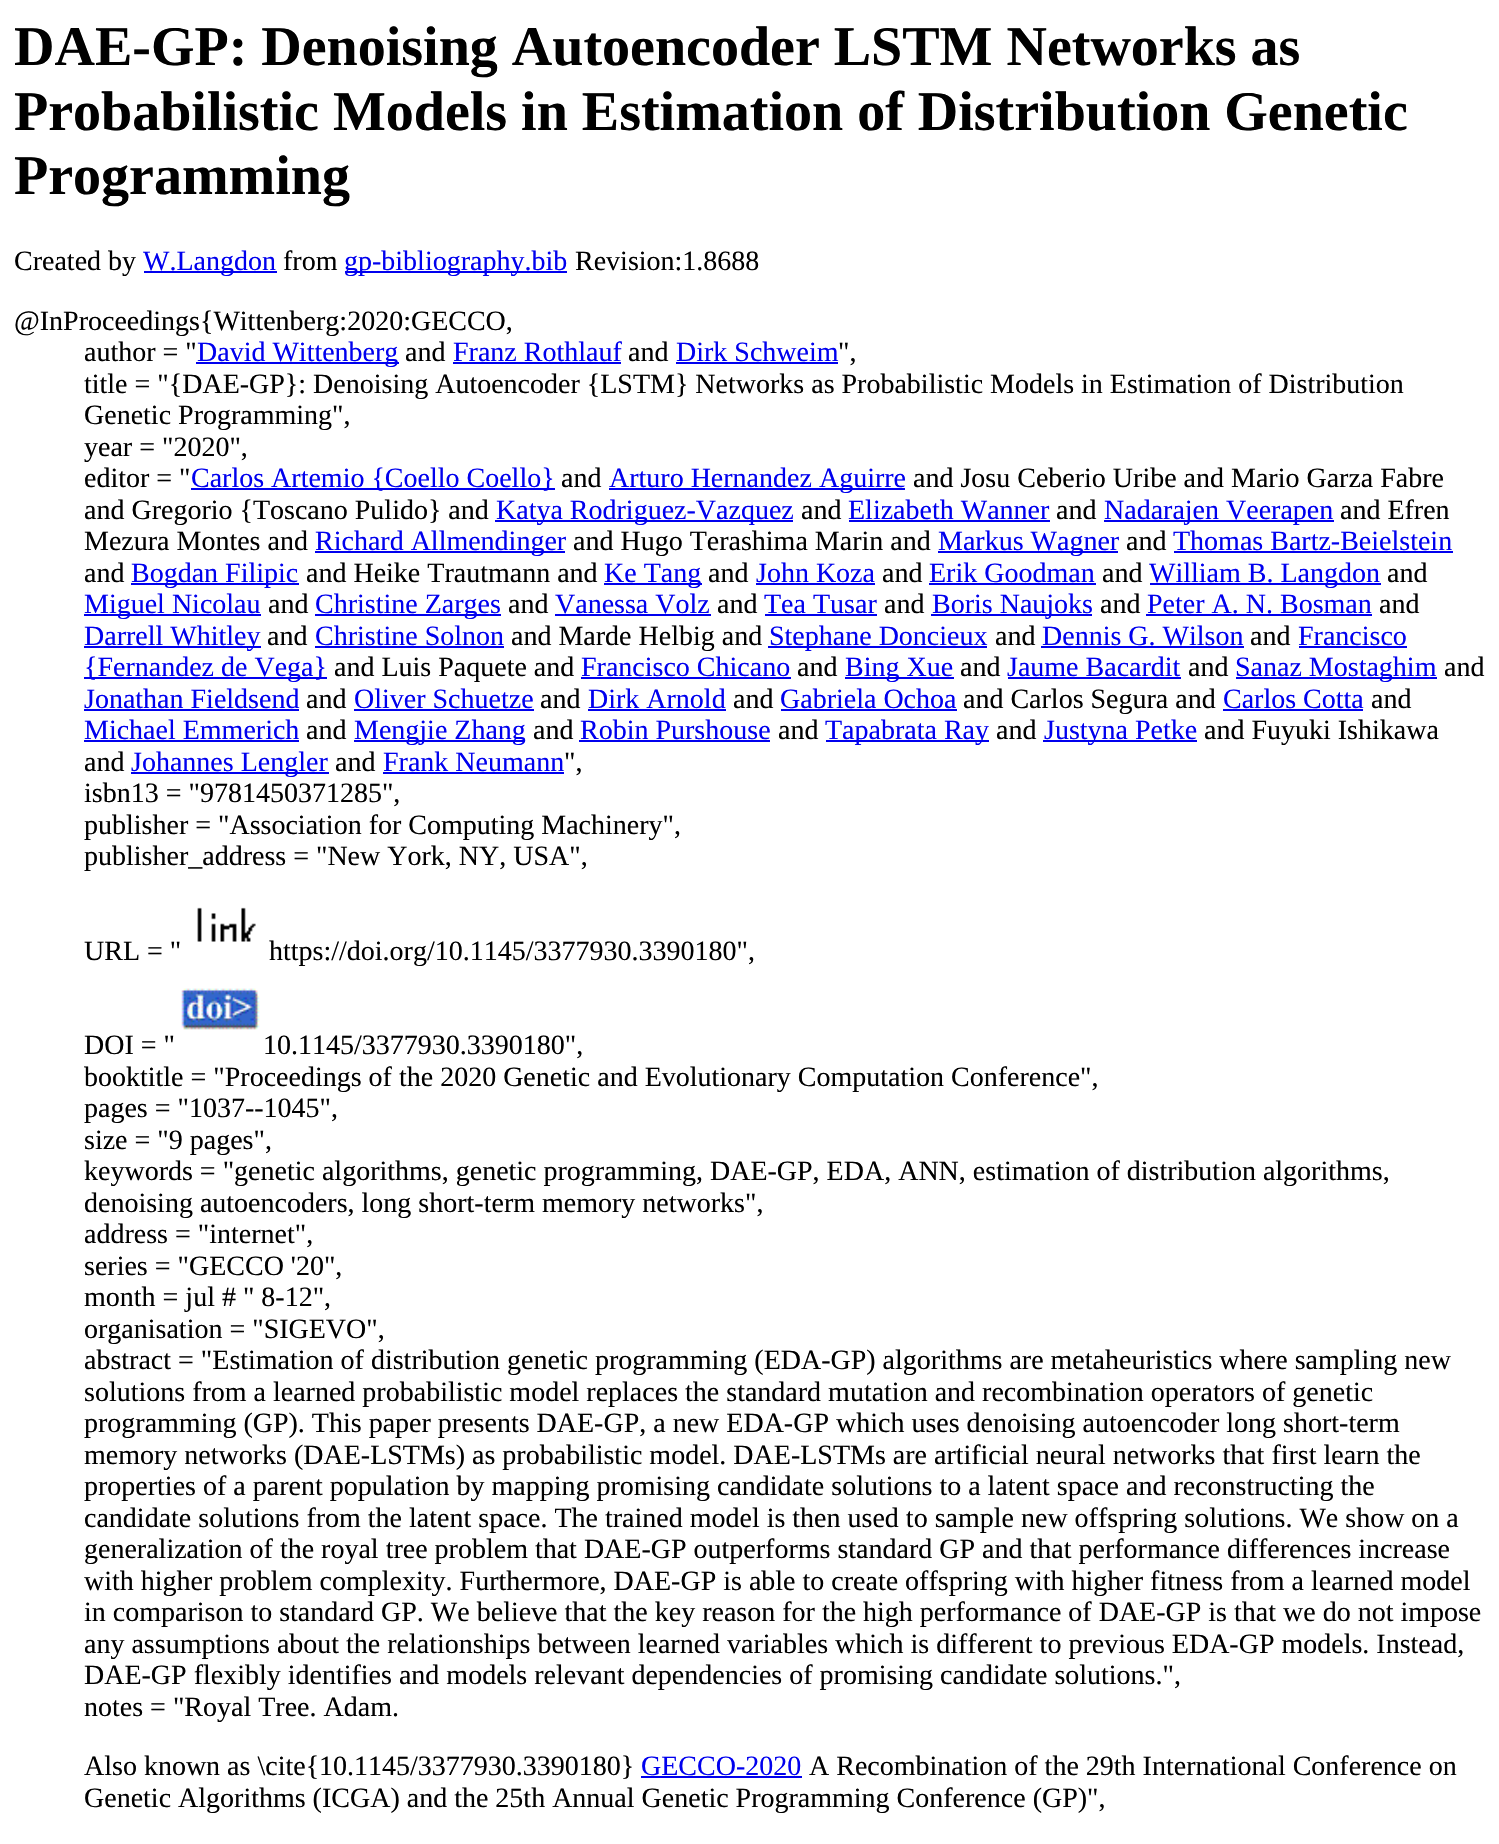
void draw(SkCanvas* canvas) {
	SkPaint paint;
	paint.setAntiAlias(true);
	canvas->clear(0xffffffff);
	SkFont f1(fontMgr->matchFamilyStyle("Liberation Serif", SkFontStyle::Bold()), 56);
	f1.setSubpixel(true);
	paint.setColor(0xff000000);
	canvas->drawString("DAE-GP: Denoising Autoencoder LSTM Networks as", 14, 65, f1, paint);
	canvas->drawString("Probabilistic Models in Estimation of Distribution Genetic", 14, 130, f1, paint);
	canvas->drawString("Programming", 14, 194, f1, paint);
	SkFont f2(fontMgr->matchFamilyStyle("Liberation Serif", SkFontStyle::Normal()), 28);
	f2.setSubpixel(true);
	canvas->drawString("Created by", 14, 270, f2, paint);
	paint.setColor(0xff0000ee);
	canvas->drawRect(SkRect::MakeXYWH(144, 271, 133, 2), paint);
	canvas->drawString("W.Langdon", 143, 270, f2, paint);
	paint.setColor(0xff000000);
	canvas->drawString("from", 283, 270, f2, paint);
	paint.setColor(0xff0000ee);
	canvas->drawRect(SkRect::MakeXYWH(345, 271, 222, 2), paint);
	canvas->drawString("gp-bibliography.bib", 344, 270, f2, paint);
	paint.setColor(0xff000000);
	canvas->drawString("Revision:1.8688", 575, 270, f2, paint);
	canvas->drawString("@InProceedings{Wittenberg:2020:GECCO,", 14, 330, f2, paint);
	canvas->drawString("author = \"", 84, 361, f2, paint);
	paint.setColor(0xff0000ee);
	canvas->drawRect(SkRect::MakeXYWH(196, 362, 203, 2), paint);
	canvas->drawString("David Wittenberg", 197, 361, f2, paint);
	paint.setColor(0xff000000);
	canvas->drawString("and", 405, 361, f2, paint);
	paint.setColor(0xff0000ee);
	canvas->drawString("Franz Rothlauf", 453, 361, f2, paint);
	canvas->drawRect(SkRect::MakeXYWH(453, 362, 168, 2), paint);
	paint.setColor(0xff000000);
	canvas->drawString("and", 628, 361, f2, paint);
	paint.setColor(0xff0000ee);
	canvas->drawString("Dirk Schweim", 676, 361, f2, paint);
	canvas->drawRect(SkRect::MakeXYWH(676, 362, 162, 2), paint);
	paint.setColor(0xff000000);
	canvas->drawString("\",", 838, 361, f2, paint);
	canvas->drawString("title = \"{DAE-GP}: Denoising Autoencoder {LSTM} Networks as Probabilistic Models in Estimation of Distribution", 84, 393, f2, paint);
	canvas->drawString("Genetic Programming\",", 84, 424, f2, paint);
	canvas->drawString("year = \"2020\",", 84, 456, f2, paint);
	canvas->drawString("editor = \"", 84, 487, f2, paint);
	paint.setColor(0xff0000ee);
	canvas->drawRect(SkRect::MakeXYWH(191, 488, 364, 2), paint);
	canvas->drawString("Carlos Artemio {Coello Coello}", 191, 487, f2, paint);
	paint.setColor(0xff000000);
	canvas->drawString("and", 561, 487, f2, paint);
	paint.setColor(0xff0000ee);
	canvas->drawRect(SkRect::MakeXYWH(609, 488, 296, 2), paint);
	canvas->drawString("Arturo Hernandez Aguirre", 609, 487, f2, paint);
	paint.setColor(0xff000000);
	canvas->drawString("and Josu Ceberio Uribe and Mario Garza Fabre", 913, 487, f2, paint);
	canvas->drawString("and Gregorio {Toscano Pulido} and", 84, 519, f2, paint);
	paint.setColor(0xff0000ee);
	canvas->drawRect(SkRect::MakeXYWH(495, 520, 298, 2), paint);
	canvas->drawString("Katya Rodriguez-Vazquez", 496, 519, f2, paint);
	paint.setColor(0xff000000);
	canvas->drawString("and", 801, 519, f2, paint);
	paint.setColor(0xff0000ee);
	canvas->drawString("Elizabeth Wanner", 848, 519, f2, paint);
	canvas->drawRect(SkRect::MakeXYWH(849, 520, 201, 2), paint);
	paint.setColor(0xff000000);
	canvas->drawString("and", 1056, 519, f2, paint);
	paint.setColor(0xff0000ee);
	canvas->drawRect(SkRect::MakeXYWH(1104, 520, 230, 2), paint);
	canvas->drawString("Nadarajen Veerapen", 1104, 519, f2, paint);
	paint.setColor(0xff000000);
	canvas->drawString("and Efren", 1340, 519, f2, paint);
	canvas->drawString("Mezura Montes and", 84, 550, f2, paint);
	paint.setColor(0xff0000ee);
	canvas->drawRect(SkRect::MakeXYWH(315, 551, 250, 2), paint);
	canvas->drawString("Richard Allmendinger", 315, 550, f2, paint);
	paint.setColor(0xff000000);
	canvas->drawString("and Hugo Terashima Marin and", 573, 550, f2, paint);
	paint.setColor(0xff0000ee);
	canvas->drawRect(SkRect::MakeXYWH(938, 551, 180, 2), paint);
	canvas->drawString("Markus Wagner", 938, 550, f2, paint);
	paint.setColor(0xff000000);
	canvas->drawString("and", 1126, 550, f2, paint);
	paint.setColor(0xff0000ee);
	canvas->drawString("Thomas Bartz-Beielstein", 1173, 550, f2, paint);
	canvas->drawRect(SkRect::MakeXYWH(1174, 551, 279, 2), paint);
	paint.setColor(0xff000000);
	canvas->drawString("and", 84, 582, f2, paint);
	paint.setColor(0xff0000ee);
	canvas->drawRect(SkRect::MakeXYWH(131, 583, 168, 2), paint);
	canvas->drawString("Bogdan Filipic", 131, 582, f2, paint);
	paint.setColor(0xff000000);
	canvas->drawString("and Heike Trautmann and", 306, 582, f2, paint);
	paint.setColor(0xff0000ee);
	canvas->drawRect(SkRect::MakeXYWH(604, 583, 98, 2), paint);
	canvas->drawString("Ke Tang", 604, 582, f2, paint);
	paint.setColor(0xff000000);
	canvas->drawString("and", 708, 582, f2, paint);
	paint.setColor(0xff0000ee);
	canvas->drawString("John Koza", 756, 582, f2, paint);
	canvas->drawRect(SkRect::MakeXYWH(756, 583, 119, 2), paint);
	paint.setColor(0xff000000);
	canvas->drawString("and", 882, 582, f2, paint);
	paint.setColor(0xff0000ee);
	canvas->drawString("Erik Goodman", 929, 582, f2, paint);
	canvas->drawRect(SkRect::MakeXYWH(929, 583, 167, 2), paint);
	paint.setColor(0xff000000);
	canvas->drawString("and", 1102, 582, f2, paint);
	paint.setColor(0xff0000ee);
	canvas->drawRect(SkRect::MakeXYWH(1150, 583, 231, 2), paint);
	canvas->drawString("William B. Langdon", 1149, 582, f2, paint);
	paint.setColor(0xff000000);
	canvas->drawString("and", 1387, 582, f2, paint);
	paint.setColor(0xff0000ee);
	canvas->drawRect(SkRect::MakeXYWH(84, 614, 177, 2), paint);
	canvas->drawString("Miguel Nicolau", 84, 613, f2, paint);
	paint.setColor(0xff000000);
	canvas->drawString("and", 268, 613, f2, paint);
	paint.setColor(0xff0000ee);
	canvas->drawRect(SkRect::MakeXYWH(315, 614, 186, 2), paint);
	canvas->drawString("Christine Zarges", 315, 613, f2, paint);
	paint.setColor(0xff000000);
	canvas->drawString("and", 508, 613, f2, paint);
	paint.setColor(0xff0000ee);
	canvas->drawString("Vanessa Volz", 555, 613, f2, paint);
	canvas->drawRect(SkRect::MakeXYWH(555, 614, 156, 2), paint);
	paint.setColor(0xff000000);
	canvas->drawString("and", 717, 613, f2, paint);
	paint.setColor(0xff0000ee);
	canvas->drawString("Tea Tusar", 764, 613, f2, paint);
	canvas->drawRect(SkRect::MakeXYWH(765, 614, 112, 2), paint);
	paint.setColor(0xff000000);
	canvas->drawString("and", 884, 613, f2, paint);
	paint.setColor(0xff0000ee);
	canvas->drawRect(SkRect::MakeXYWH(931, 614, 161, 2), paint);
	canvas->drawString("Boris Naujoks", 932, 613, f2, paint);
	paint.setColor(0xff000000);
	canvas->drawString("and", 1100, 613, f2, paint);
	paint.setColor(0xff0000ee);
	canvas->drawString("Peter A. N. Bosman", 1147, 613, f2, paint);
	canvas->drawRect(SkRect::MakeXYWH(1146, 614, 226, 2), paint);
	paint.setColor(0xff000000);
	canvas->drawString("and", 1379, 613, f2, paint);
	paint.setColor(0xff0000ee);
	canvas->drawRect(SkRect::MakeXYWH(84, 646, 177, 2), paint);
	canvas->drawString("Darrell Whitley", 84, 645, f2, paint);
	paint.setColor(0xff000000);
	canvas->drawString("and", 267, 645, f2, paint);
	paint.setColor(0xff0000ee);
	canvas->drawString("Christine Solnon", 315, 645, f2, paint);
	canvas->drawRect(SkRect::MakeXYWH(315, 646, 189, 2), paint);
	paint.setColor(0xff000000);
	canvas->drawString("and Marde Helbig and", 511, 645, f2, paint);
	paint.setColor(0xff0000ee);
	canvas->drawRect(SkRect::MakeXYWH(768, 646, 219, 2), paint);
	canvas->drawString("Stephane Doncieux", 769, 645, f2, paint);
	paint.setColor(0xff000000);
	canvas->drawString("and", 995, 645, f2, paint);
	paint.setColor(0xff0000ee);
	canvas->drawString("Dennis G. Wilson", 1042, 645, f2, paint);
	canvas->drawRect(SkRect::MakeXYWH(1041, 646, 203, 2), paint);
	paint.setColor(0xff000000);
	canvas->drawString("and", 1250, 645, f2, paint);
	paint.setColor(0xff0000ee);
	canvas->drawString("Francisco", 1298, 645, f2, paint);
	canvas->drawRect(SkRect::MakeXYWH(1299, 646, 108, 2), paint);
	canvas->drawRect(SkRect::MakeXYWH(84, 677, 243, 2), paint);
	canvas->drawString("{Fernandez de Vega}", 84, 676, f2, paint);
	paint.setColor(0xff000000);
	canvas->drawString("and Luis Paquete and", 334, 676, f2, paint);
	paint.setColor(0xff0000ee);
	canvas->drawString("Francisco Chicano", 581, 676, f2, paint);
	canvas->drawRect(SkRect::MakeXYWH(581, 677, 210, 2), paint);
	paint.setColor(0xff000000);
	canvas->drawString("and", 797, 676, f2, paint);
	paint.setColor(0xff0000ee);
	canvas->drawRect(SkRect::MakeXYWH(845, 677, 109, 2), paint);
	canvas->drawString("Bing Xue", 845, 676, f2, paint);
	paint.setColor(0xff000000);
	canvas->drawString("and", 960, 676, f2, paint);
	paint.setColor(0xff0000ee);
	canvas->drawString("Jaume Bacardit", 1007, 676, f2, paint);
	canvas->drawRect(SkRect::MakeXYWH(1008, 677, 173, 2), paint);
	paint.setColor(0xff000000);
	canvas->drawString("and", 1188, 676, f2, paint);
	paint.setColor(0xff0000ee);
	canvas->drawRect(SkRect::MakeXYWH(1236, 677, 201, 2), paint);
	canvas->drawString("Sanaz Mostaghim", 1235, 676, f2, paint);
	paint.setColor(0xff000000);
	canvas->drawString("and", 1444, 676, f2, paint);
	paint.setColor(0xff0000ee);
	canvas->drawString("Jonathan Fieldsend", 84, 708, f2, paint);
	canvas->drawRect(SkRect::MakeXYWH(84, 709, 215, 2), paint);
	paint.setColor(0xff000000);
	canvas->drawString("and", 306, 708, f2, paint);
	paint.setColor(0xff0000ee);
	canvas->drawString("Oliver Schuetze", 354, 708, f2, paint);
	canvas->drawRect(SkRect::MakeXYWH(354, 709, 180, 2), paint);
	paint.setColor(0xff000000);
	canvas->drawString("and", 540, 708, f2, paint);
	paint.setColor(0xff0000ee);
	canvas->drawString("Dirk Arnold", 588, 708, f2, paint);
	canvas->drawRect(SkRect::MakeXYWH(588, 709, 138, 2), paint);
	paint.setColor(0xff000000);
	canvas->drawString("and", 733, 708, f2, paint);
	paint.setColor(0xff0000ee);
	canvas->drawString("Gabriela Ochoa", 780, 708, f2, paint);
	canvas->drawRect(SkRect::MakeXYWH(781, 709, 176, 2), paint);
	paint.setColor(0xff000000);
	canvas->drawString("and Carlos Segura and", 963, 708, f2, paint);
	paint.setColor(0xff0000ee);
	canvas->drawString("Carlos Cotta", 1223, 708, f2, paint);
	canvas->drawRect(SkRect::MakeXYWH(1223, 709, 140, 2), paint);
	paint.setColor(0xff000000);
	canvas->drawString("and", 1371, 708, f2, paint);
	paint.setColor(0xff0000ee);
	canvas->drawString("Michael Emmerich", 84, 739, f2, paint);
	canvas->drawRect(SkRect::MakeXYWH(84, 740, 215, 2), paint);
	paint.setColor(0xff000000);
	canvas->drawString("and", 306, 739, f2, paint);
	paint.setColor(0xff0000ee);
	canvas->drawRect(SkRect::MakeXYWH(354, 740, 171, 2), paint);
	canvas->drawString("Mengjie Zhang", 354, 739, f2, paint);
	paint.setColor(0xff000000);
	canvas->drawString("and", 533, 739, f2, paint);
	paint.setColor(0xff0000ee);
	canvas->drawString("Robin Purshouse", 580, 739, f2, paint);
	canvas->drawRect(SkRect::MakeXYWH(579, 740, 191, 2), paint);
	paint.setColor(0xff000000);
	canvas->drawString("and", 778, 739, f2, paint);
	paint.setColor(0xff0000ee);
	canvas->drawRect(SkRect::MakeXYWH(826, 740, 163, 2), paint);
	canvas->drawString("Tapabrata Ray", 825, 739, f2, paint);
	paint.setColor(0xff000000);
	canvas->drawString("and", 996, 739, f2, paint);
	paint.setColor(0xff0000ee);
	canvas->drawRect(SkRect::MakeXYWH(1043, 740, 154, 2), paint);
	canvas->drawString("Justyna Petke", 1044, 739, f2, paint);
	paint.setColor(0xff000000);
	canvas->drawString("and Fuyuki Ishikawa", 1204, 739, f2, paint);
	canvas->drawString("and", 84, 771, f2, paint);
	paint.setColor(0xff0000ee);
	canvas->drawRect(SkRect::MakeXYWH(131, 772, 198, 2), paint);
	canvas->drawString("Johannes Lengler", 131, 771, f2, paint);
	paint.setColor(0xff000000);
	canvas->drawString("and", 335, 771, f2, paint);
	paint.setColor(0xff0000ee);
	canvas->drawString("Frank Neumann", 383, 771, f2, paint);
	canvas->drawRect(SkRect::MakeXYWH(383, 772, 181, 2), paint);
	paint.setColor(0xff000000);
	canvas->drawString("\",", 564, 771, f2, paint);
	canvas->drawString("isbn13 = \"9781450371285\",", 84, 802, f2, paint);
	canvas->drawString("publisher = \"Association for Computing Machinery\",", 84, 834, f2, paint);
	canvas->drawString("publisher_address = \"New York, NY, USA\",", 84, 865, f2, paint);
	canvas->drawImageRect(SkImages::DeferredFromEncodedData(SkData::MakeFromFileName("img1.png")), SkRect::MakeXYWH(197, 907, 59, 35), SkSamplingOptions());
	canvas->drawString("URL = \"", 84, 960, f2, paint);
	canvas->drawString("https://doi.org/10.1145/3377930.3390180\",", 269, 960, f2, paint);
	canvas->drawImageRect(SkImages::DeferredFromEncodedData(SkData::MakeFromFileName("img2.png")), SkRect::MakeXYWH(181, 988, 79, 42), SkSamplingOptions());
	canvas->drawString("DOI = \"", 84, 1054, f2, paint);
	canvas->drawString("10.1145/3377930.3390180\",", 263, 1054, f2, paint);
	canvas->drawString("booktitle = \"Proceedings of the 2020 Genetic and Evolutionary Computation Conference\",", 84, 1086, f2, paint);
	canvas->drawString("pages = \"1037--1045\",", 84, 1117, f2, paint);
	canvas->drawString("size = \"9 pages\",", 84, 1149, f2, paint);
	canvas->drawString("keywords = \"genetic algorithms, genetic programming, DAE-GP, EDA, ANN, estimation of distribution algorithms,", 84, 1180, f2, paint);
	canvas->drawString("denoising autoencoders, long short-term memory networks\",", 84, 1212, f2, paint);
	canvas->drawString("address = \"internet\",", 84, 1243, f2, paint);
	canvas->drawString("series = \"GECCO '20\",", 84, 1275, f2, paint);
	canvas->drawString("month = jul # \" 8-12\",", 84, 1306, f2, paint);
	canvas->drawString("organisation = \"SIGEVO\",", 84, 1338, f2, paint);
	canvas->drawString("abstract = \"Estimation of distribution genetic programming (EDA-GP) algorithms are metaheuristics where sampling new", 84, 1369, f2, paint);
	canvas->drawString("solutions from a learned probabilistic model replaces the standard mutation and recombination operators of genetic", 84, 1401, f2, paint);
	canvas->drawString("programming (GP). This paper presents DAE-GP, a new EDA-GP which uses denoising autoencoder long short-term", 84, 1432, f2, paint);
	canvas->drawString("memory networks (DAE-LSTMs) as probabilistic model. DAE-LSTMs are artificial neural networks that first learn the", 84, 1464, f2, paint);
	canvas->drawString("properties of a parent population by mapping promising candidate solutions to a latent space and reconstructing the", 84, 1495, f2, paint);
	canvas->drawString("candidate solutions from the latent space. The trained model is then used to sample new offspring solutions. We show on a", 84, 1527, f2, paint);
	canvas->drawString("generalization of the royal tree problem that DAE-GP outperforms standard GP and that performance differences increase", 84, 1558, f2, paint);
	canvas->drawString("with higher problem complexity. Furthermore, DAE-GP is able to create offspring with higher fitness from a learned model", 84, 1590, f2, paint);
	canvas->drawString("in comparison to standard GP. We believe that the key reason for the high performance of DAE-GP is that we do not impose", 84, 1621, f2, paint);
	canvas->drawString("any assumptions about the relationships between learned variables which is different to previous EDA-GP models. Instead,", 84, 1653, f2, paint);
	canvas->drawString("DAE-GP flexibly identifies and models relevant dependencies of promising candidate solutions.\",", 84, 1684, f2, paint);
	canvas->drawString("notes = \"Royal Tree. Adam.", 84, 1716, f2, paint);
	canvas->drawString("Also known as \\cite{10.1145/3377930.3390180}", 84, 1775, f2, paint);
	paint.setColor(0xff0000ee);
	canvas->drawString("GECCO-2020", 641, 1775, f2, paint);
	canvas->drawRect(SkRect::MakeXYWH(641, 1776, 161, 2), paint);
	paint.setColor(0xff000000);
	canvas->drawString("A Recombination of the 29th International Conference on", 809, 1775, f2, paint);
	canvas->drawString("Genetic Algorithms (ICGA) and the 25th Annual Genetic Programming Conference (GP)\",", 84, 1807, f2, paint);
}
